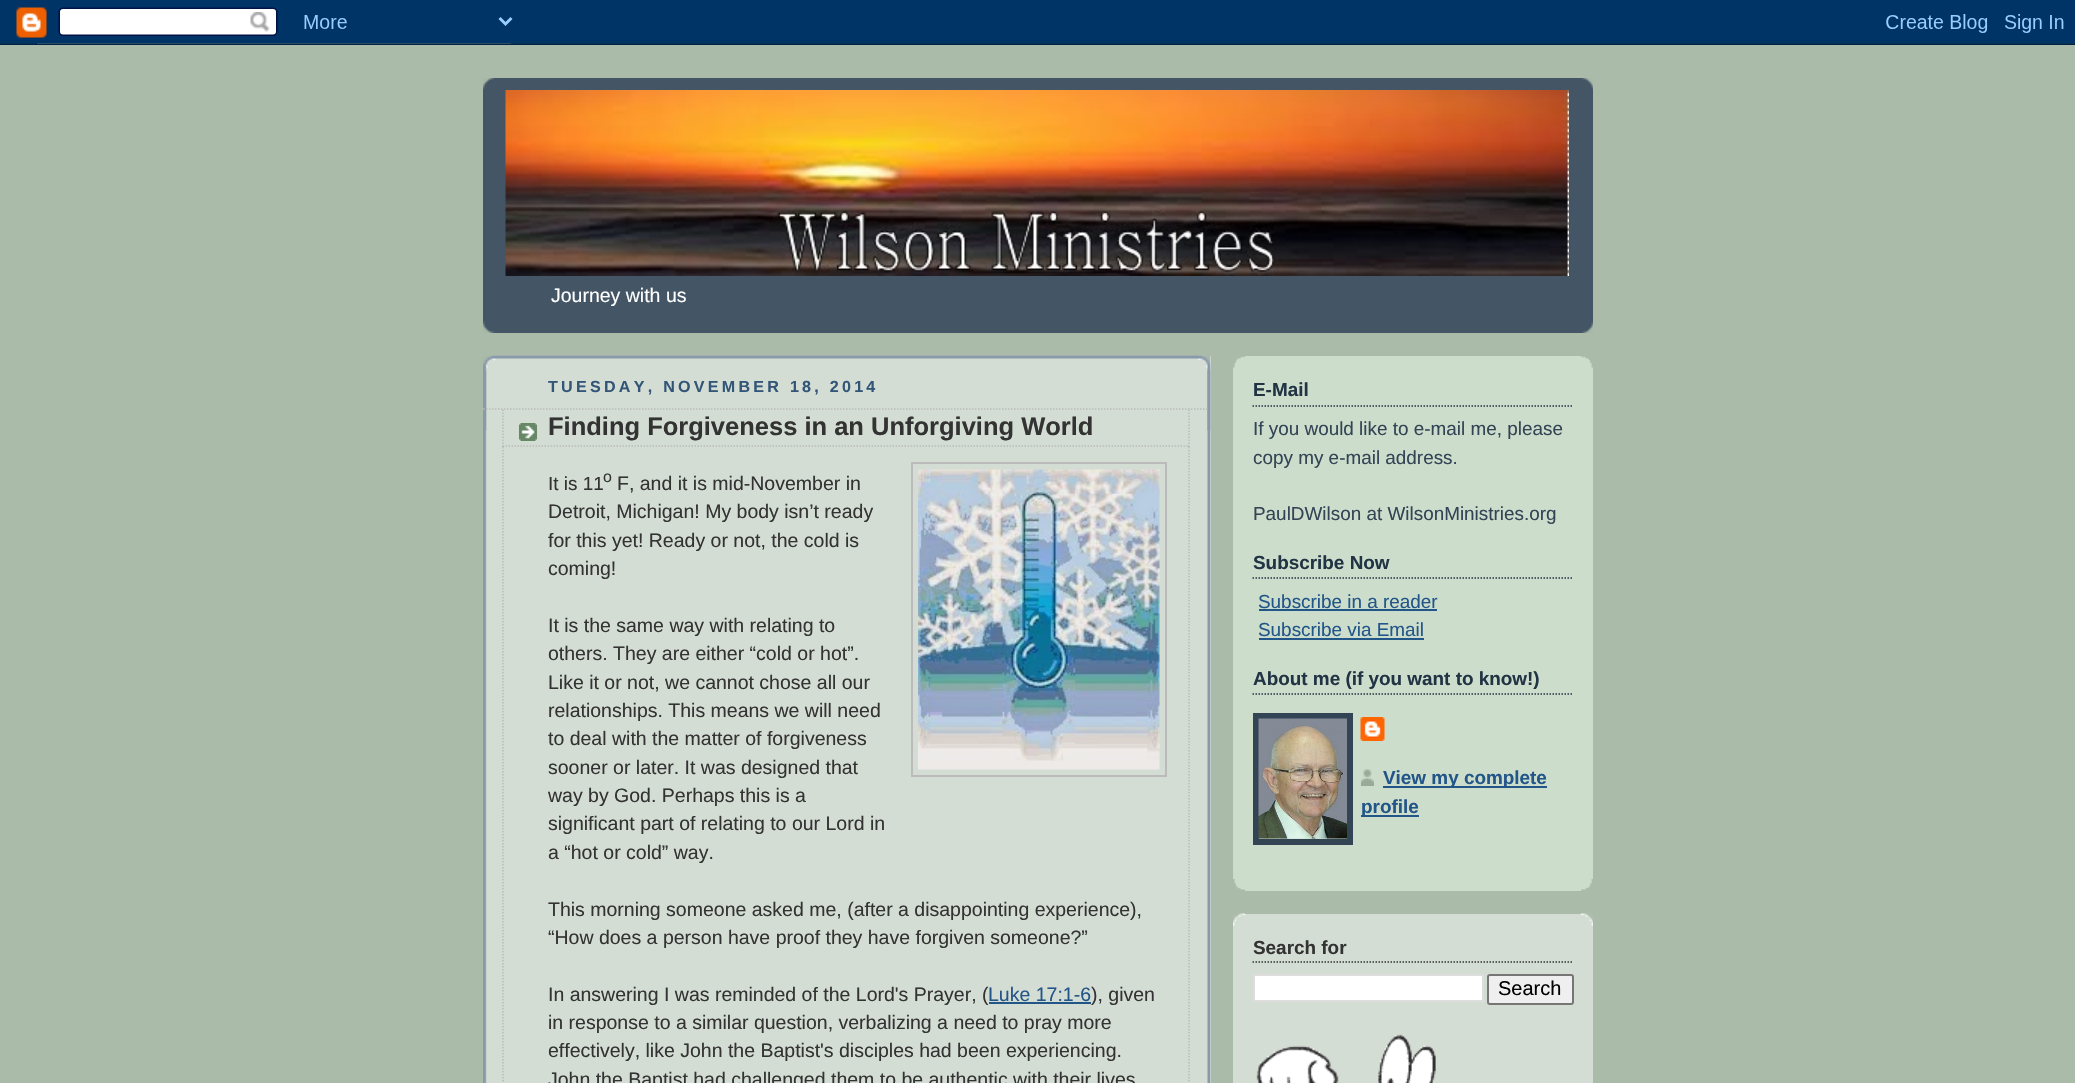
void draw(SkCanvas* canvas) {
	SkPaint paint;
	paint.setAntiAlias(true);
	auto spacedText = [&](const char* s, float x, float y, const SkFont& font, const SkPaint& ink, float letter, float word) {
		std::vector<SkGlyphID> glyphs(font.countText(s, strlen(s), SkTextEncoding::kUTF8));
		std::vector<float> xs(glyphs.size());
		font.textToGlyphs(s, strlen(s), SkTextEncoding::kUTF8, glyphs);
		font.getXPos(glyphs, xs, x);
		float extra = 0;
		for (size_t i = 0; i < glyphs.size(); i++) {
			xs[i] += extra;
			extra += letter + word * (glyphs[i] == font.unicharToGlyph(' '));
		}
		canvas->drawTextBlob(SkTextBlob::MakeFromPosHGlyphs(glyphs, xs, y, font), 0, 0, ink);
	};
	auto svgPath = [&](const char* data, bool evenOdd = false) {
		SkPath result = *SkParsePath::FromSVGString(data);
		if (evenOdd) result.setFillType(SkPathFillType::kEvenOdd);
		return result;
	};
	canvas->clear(0xffaabbaa);
	canvas->drawImageRect(SkImages::DeferredFromEncodedData(SkData::MakeFromFileName("img1.png")), SkRect::MakeXYWH(0, 0, 2075, 45), SkSamplingOptions());
	paint.setColor(0xff445566);
	canvas->drawRect(SkRect::MakeXYWH(483, 78, 1110, 255), paint);
	canvas->drawImageRect(SkImages::DeferredFromEncodedData(SkData::MakeFromFileName("img2.png")), SkRect::MakeXYWH(483, 78, 1110, 12), SkSamplingOptions());
	canvas->drawImageRect(SkImages::DeferredFromEncodedData(SkData::MakeFromFileName("img3.png")), SkRect::MakeXYWH(483, 321, 1110, 12), SkSamplingOptions());
	canvas->drawImageRect(SkImages::DeferredFromEncodedData(SkData::MakeFromFileName("img4.png")), SkRect::MakeXYWH(505, 90, 1064, 186), SkSamplingOptions());
	SkFont f1(fontMgr->matchFamilyStyle("Liberation Sans", SkFontStyle::Normal()), 19.5);
	f1.setSubpixel(true);
	paint.setColor(0xffffffff);
	canvas->drawString("Journey with us", 551, 302, f1, paint);
	paint.setColor(0xffd4ddd4);
	canvas->drawRect(SkRect::MakeXYWH(485, 356, 726, 727), paint);
	canvas->drawImageRect(SkImages::DeferredFromEncodedData(SkData::MakeFromFileName("img5.png")), SkRect::MakeXYWH(483, 355, 728, 76), SkSamplingOptions());
	canvas->drawImageRect(SkImages::DeferredFromEncodedData(SkData::MakeFromFileName("img6.png")), SkRect::MakeXYWH(483, 370, 728, 713), SkSamplingOptions());
	SkFont f2(fontMgr->matchFamilyStyle("Liberation Sans", SkFontStyle::Bold()), 16.1);
	f2.setSubpixel(true);
	paint.setColor(0xff335577);
	spacedText("TUESDAY, NOVEMBER 18, 2014", 548, 392, f2, paint, 3.25, 0);
	paint.setStroke(true);
	paint.setStrokeWidth(1.5);
	paint.setColor(0xffbbbbbb);
	paint.setPathEffect(SkDashPathEffect::Make({{1.5f, 1.5f}}, 0));
	canvas->drawPath(svgPath("M483 409H1209"), paint);
	paint.setPathEffect(nullptr);
	canvas->drawImageRect(SkImages::DeferredFromEncodedData(SkData::MakeFromFileName("img7.png")), SkRect::MakeXYWH(519, 423, 18, 18), SkSamplingOptions());
	paint.setPathEffect(SkDashPathEffect::Make({{1.5f, 1.5f}}, 0));
	canvas->drawPath(svgPath("M1189 409.5V447"), paint);
	paint.setPathEffect(nullptr);
	paint.setPathEffect(SkDashPathEffect::Make({{1.5f, 1.5f}}, 0));
	canvas->drawPath(svgPath("M502.5 446H1189.5"), paint);
	paint.setPathEffect(nullptr);
	paint.setPathEffect(SkDashPathEffect::Make({{1.5f, 1.5f}}, 0));
	canvas->drawPath(svgPath("M503 409.5V447"), paint);
	paint.setPathEffect(nullptr);
	SkFont f3(fontMgr->matchFamilyStyle("Liberation Sans", SkFontStyle::Bold()), 25.5);
	f3.setSubpixel(true);
	paint.setStroke(false);
	paint.setColor(0xff333333);
	canvas->drawString("Finding Forgiveness in an Unforgiving World", 548, 435, f3, paint);
	paint.setStroke(true);
	paint.setColor(0xffbbbbbb);
	paint.setPathEffect(SkDashPathEffect::Make({{1.5f, 1.5f}}, 0));
	canvas->drawPath(svgPath("M1189 447V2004"), paint);
	paint.setPathEffect(nullptr);
	paint.setPathEffect(SkDashPathEffect::Make({{1.5f, 1.5f}}, 0));
	canvas->drawPath(svgPath("M503 447V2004"), paint);
	paint.setPathEffect(nullptr);
	SkFont f4(fontMgr->matchFamilyStyle("Liberation Sans", SkFontStyle::Normal()), 18.9);
	f4.setSubpixel(true);
	paint.setStroke(false);
	paint.setColor(0xff333333);
	canvas->drawString("It is 11", 548, 490, f4, paint);
	SkFont f5(fontMgr->matchFamilyStyle("Liberation Sans", SkFontStyle::Normal()), 16);
	f5.setSubpixel(true);
	canvas->drawString("o", 603, 482, f5, paint);
	canvas->drawString("F, and it is mid-November in", 617, 490, f1, paint);
	paint.setStroke(true);
	paint.setStrokeWidth(2);
	paint.setColor(0xffbbbbbb);
	canvas->drawRect(SkRect::MakeXYWH(912, 463, 254, 313), paint);
	canvas->drawImageRect(SkImages::DeferredFromEncodedData(SkData::MakeFromFileName("img8.png")), SkRect::MakeXYWH(918, 469, 242, 301), SkSamplingOptions());
	paint.setStroke(false);
	paint.setColor(0xff333333);
	canvas->drawString("Detroit, Michigan! My body isn’t ready", 548, 518, f1, paint);
	canvas->drawString("for this yet! Ready or not, the cold is", 548, 547, f1, paint);
	canvas->drawString("coming!", 548, 575, f1, paint);
	canvas->drawString("It is the same way with relating to", 548, 632, f1, paint);
	canvas->drawString("others. They are either “cold or hot”.", 548, 660, f1, paint);
	canvas->drawString("Like it or not, we cannot chose all our", 548, 689, f1, paint);
	canvas->drawString("relationships. This means we will need", 548, 717, f1, paint);
	canvas->drawString("to deal with the matter of forgiveness", 548, 745, f1, paint);
	canvas->drawString("sooner or later. It was designed that", 548, 774, f1, paint);
	canvas->drawString("way by God. Perhaps this is a", 548, 802, f1, paint);
	canvas->drawString("significant part of relating to our Lord in", 548, 830, f1, paint);
	canvas->drawString("a “hot or cold” way.", 548, 859, f1, paint);
	canvas->drawString("This morning someone asked me, (after a disappointing experience),", 548, 916, f1, paint);
	canvas->drawString("“How does a person have proof they have forgiven someone?”", 548, 944, f1, paint);
	canvas->drawString("In answering I was reminded of the Lord's Prayer, (", 548, 1001, f1, paint);
	paint.setColor(0xff225588);
	canvas->drawString("Luke 17:1-6", 988, 1001, f1, paint);
	paint.setColor(0xff333333);
	canvas->drawString("), given", 1091, 1001, f1, paint);
	paint.setColor(0xff225588);
	canvas->drawRect(SkRect::MakeXYWH(989, 1002, 102, 2), paint);
	paint.setColor(0xff333333);
	canvas->drawString("in response to a similar question, verbalizing a need to pray more", 548, 1029, f1, paint);
	canvas->drawString("effectively, like John the Baptist's disciples had been experiencing.", 548, 1057, f1, paint);
	canvas->drawString("John the Baptist had challenged them to be authentic with their lives", 548, 1086, f1, paint);
	paint.setColor(0xffccddcc);
	canvas->drawRect(SkRect::MakeXYWH(1233, 356, 360, 535), paint);
	canvas->drawImageRect(SkImages::DeferredFromEncodedData(SkData::MakeFromFileName("img9.png")), SkRect::MakeXYWH(1233, 879, 360, 12), SkSamplingOptions());
	canvas->drawImageRect(SkImages::DeferredFromEncodedData(SkData::MakeFromFileName("img10.png")), SkRect::MakeXYWH(1233, 356, 360, 12), SkSamplingOptions());
	paint.setStroke(true);
	paint.setStrokeWidth(1.5);
	paint.setColor(0xff223344);
	paint.setPathEffect(SkDashPathEffect::Make({{1.5f, 1.5f}}, 0));
	canvas->drawPath(svgPath("M1252.5 406H1573.5"), paint);
	paint.setPathEffect(nullptr);
	SkFont f6(fontMgr->matchFamilyStyle("Liberation Sans", SkFontStyle::Bold()), 18.9);
	f6.setSubpixel(true);
	paint.setStroke(false);
	canvas->drawString("E-Mail", 1253, 396, f6, paint);
	paint.setColor(0xff334455);
	canvas->drawString("If you would like to e-mail me, please", 1253, 435, f4, paint);
	canvas->drawString("copy my e-mail address.", 1253, 464, f4, paint);
	canvas->drawString("PaulDWilson at WilsonMinistries.org", 1253, 520, f4, paint);
	paint.setStroke(true);
	paint.setColor(0xff223344);
	paint.setPathEffect(SkDashPathEffect::Make({{1.5f, 1.5f}}, 0));
	canvas->drawPath(svgPath("M1252.5 578H1573.5"), paint);
	paint.setPathEffect(nullptr);
	paint.setStroke(false);
	canvas->drawString("Subscribe Now", 1253, 569, f6, paint);
	paint.setColor(0xff225588);
	canvas->drawString("Subscribe in a reader", 1258, 608, f4, paint);
	canvas->drawRect(SkRect::MakeXYWH(1259, 609, 178, 2), paint);
	canvas->drawString("Subscribe via Email", 1258, 636, f4, paint);
	canvas->drawRect(SkRect::MakeXYWH(1259, 638, 165, 2), paint);
	paint.setStroke(true);
	paint.setColor(0xff223344);
	paint.setPathEffect(SkDashPathEffect::Make({{1.5f, 1.5f}}, 0));
	canvas->drawPath(svgPath("M1252.5 694H1573.5"), paint);
	paint.setPathEffect(nullptr);
	paint.setStroke(false);
	canvas->drawString("About me (if you want to know!)", 1253, 685, f6, paint);
	paint.setStroke(true);
	paint.setStrokeWidth(6);
	paint.setColor(0xff334455);
	canvas->drawRect(SkRect::MakeXYWH(1256, 716, 94, 126), paint);
	canvas->drawImageRect(SkImages::DeferredFromEncodedData(SkData::MakeFromFileName("img11.png")), SkRect::MakeXYWH(1258, 718, 89, 121), SkSamplingOptions());
	canvas->drawImageRect(SkImages::DeferredFromEncodedData(SkData::MakeFromFileName("img12.png")), SkRect::MakeXYWH(1360, 717, 25, 24), SkSamplingOptions());
	canvas->drawImageRect(SkImages::DeferredFromEncodedData(SkData::MakeFromFileName("img13.png")), SkRect::MakeXYWH(1361, 769, 13, 17), SkSamplingOptions());
	paint.setStroke(false);
	paint.setColor(0xff225588);
	canvas->drawRect(SkRect::MakeXYWH(1383, 786, 164, 2), paint);
	canvas->drawString("View my complete", 1383, 784, f6, paint);
	canvas->drawRect(SkRect::MakeXYWH(1361, 815, 58, 2), paint);
	canvas->drawString("profile", 1361, 813, f6, paint);
	paint.setColor(0xffd4ddd4);
	canvas->drawRect(SkRect::MakeXYWH(1233, 914, 360, 169), paint);
	canvas->drawImageRect(SkImages::DeferredFromEncodedData(SkData::MakeFromFileName("img14.png")), SkRect::MakeXYWH(1233, 913, 360, 13), SkSamplingOptions());
	paint.setStroke(true);
	paint.setStrokeWidth(1.5);
	paint.setColor(0xff333333);
	paint.setPathEffect(SkDashPathEffect::Make({{1.5f, 1.5f}}, 0));
	canvas->drawPath(svgPath("M1252.5 962H1573.5"), paint);
	paint.setPathEffect(nullptr);
	paint.setStroke(false);
	canvas->drawString("Search for", 1253, 954, f6, paint);
	paint.setColor(0xffffffff);
	canvas->drawRect(SkRect::MakeXYWH(1254, 975, 229, 26), paint);
	paint.setStroke(true);
	paint.setStrokeWidth(2);
	paint.setColor(0xffdddddd);
	canvas->drawRect(SkRect::MakeXYWH(1254, 975, 229, 26), paint);
	paint.setStroke(false);
	paint.setColor(0xffefefef);
	canvas->drawRoundRect(SkRect::MakeXYWH(1488, 975, 85, 29), 2, 2, paint);
	paint.setStroke(true);
	paint.setColor(0xff767676);
	canvas->drawRoundRect(SkRect::MakeXYWH(1488, 975, 85, 29), 2, 2, paint);
	SkFont f7(fontMgr->matchFamilyStyle("Liberation Sans", SkFontStyle::Normal()), 20);
	f7.setSubpixel(true);
	paint.setStroke(false);
	paint.setColor(0xff000000);
	canvas->drawString("Search", 1498, 995, f7, paint);
	canvas->drawImageRect(SkImages::DeferredFromEncodedData(SkData::MakeFromFileName("img15.png")), SkRect::MakeXYWH(1256, 1034, 180, 49), SkSamplingOptions());
}
